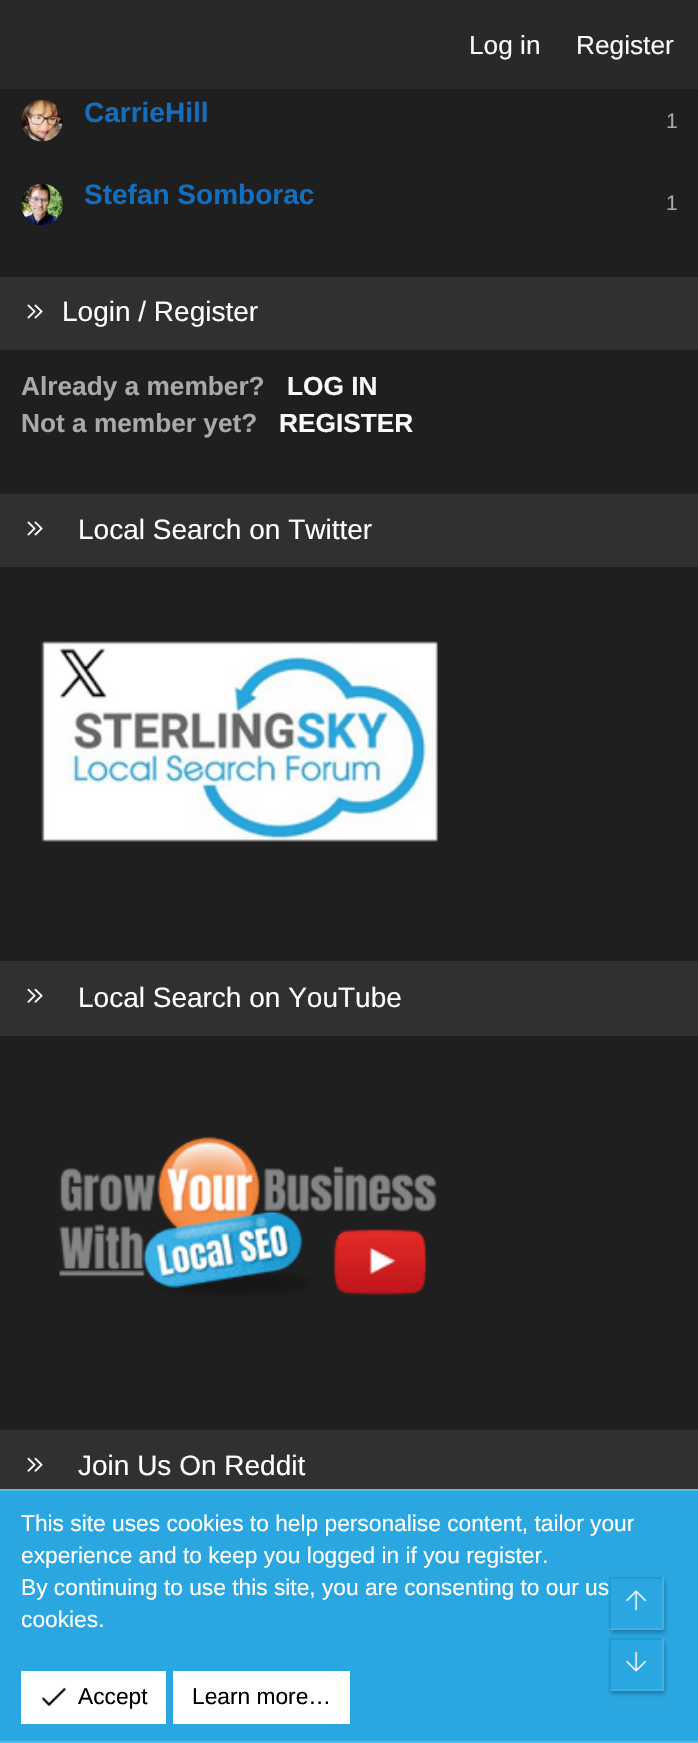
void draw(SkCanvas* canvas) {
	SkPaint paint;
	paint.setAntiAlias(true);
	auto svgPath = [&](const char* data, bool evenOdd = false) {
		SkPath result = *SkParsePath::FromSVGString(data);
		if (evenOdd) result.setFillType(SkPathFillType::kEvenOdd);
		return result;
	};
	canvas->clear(0xff1f1f1f);
	paint.setColor(0xff292929);
	canvas->drawRect(SkRect::MakeXYWH(0, 0, 698, 89), paint);
	SkFont f1(fontMgr->matchFamilyStyle("Liberation Sans", SkFontStyle::Normal()), 26.25);
	f1.setSubpixel(true);
	paint.setColor(0xfff9f9f9);
	canvas->drawString("Log in", 469, 54, f1, paint);
	canvas->drawString("Register", 576, 54, f1, paint);
	canvas->drawImageRect(SkImages::DeferredFromEncodedData(SkData::MakeFromFileName("img1.png")), SkRect::MakeXYWH(21, 99, 42, 43), SkSamplingOptions());
	SkFont f2(fontMgr->matchFamilyStyle("Liberation Sans", SkFontStyle::Bold()), 28);
	f2.setSubpixel(true);
	paint.setColor(0xff136ebf);
	canvas->drawString("CarrieHill", 84, 122, f2, paint);
	SkFont f3(fontMgr->matchFamilyStyle("Liberation Sans", SkFontStyle::Normal()), 21);
	f3.setSubpixel(true);
	paint.setColor(0xffa8a9ab);
	canvas->drawString("1", 666, 128, f3, paint);
	canvas->drawImageRect(SkImages::DeferredFromEncodedData(SkData::MakeFromFileName("img2.png")), SkRect::MakeXYWH(21, 184, 42, 41), SkSamplingOptions());
	paint.setColor(0xff136ebf);
	canvas->drawString("Stefan Somborac", 84, 204, f2, paint);
	paint.setColor(0xffa8a9ab);
	canvas->drawString("1", 666, 210, f3, paint);
	paint.setColor(0xff303030);
	canvas->drawRect(SkRect::MakeXYWH(0, 277, 698, 73), paint);
	canvas->drawImageRect(SkImages::DeferredFromEncodedData(SkData::MakeFromFileName("img3.png")), SkRect::MakeXYWH(27, 304, 16, 15), SkSamplingOptions());
	SkFont f4(fontMgr->matchFamilyStyle("Liberation Sans", SkFontStyle::Normal()), 28);
	f4.setSubpixel(true);
	paint.setColor(0xffffffff);
	canvas->drawString("Login / Register", 62, 321, f4, paint);
	SkFont f5(fontMgr->matchFamilyStyle("Liberation Sans", SkFontStyle::Bold()), 26.25);
	f5.setSubpixel(true);
	paint.setColor(0xffa8a9ab);
	canvas->drawString("Already a member?", 21, 395, f5, paint);
	paint.setColor(0xfff9f9f9);
	canvas->drawString("LOG IN", 287, 395, f5, paint);
	paint.setColor(0xffa8a9ab);
	canvas->drawString("Not a member yet?", 21, 432, f5, paint);
	paint.setColor(0xfff9f9f9);
	canvas->drawString("REGISTER", 279, 432, f5, paint);
	paint.setColor(0xff303030);
	canvas->drawRect(SkRect::MakeXYWH(0, 494, 698, 73), paint);
	canvas->drawImageRect(SkImages::DeferredFromEncodedData(SkData::MakeFromFileName("img3.png")), SkRect::MakeXYWH(27, 521, 16, 15), SkSamplingOptions());
	paint.setColor(0xffffffff);
	canvas->drawString("Local Search on Twitter", 78, 539, f4, paint);
	canvas->drawImageRect(SkImages::DeferredFromEncodedData(SkData::MakeFromFileName("img4.png")), SkRect::MakeXYWH(41, 641, 397, 201), SkSamplingOptions());
	paint.setColor(0xff303030);
	canvas->drawRect(SkRect::MakeXYWH(0, 961, 698, 75), paint);
	canvas->drawImageRect(SkImages::DeferredFromEncodedData(SkData::MakeFromFileName("img5.png")), SkRect::MakeXYWH(27, 988, 16, 15), SkSamplingOptions());
	paint.setColor(0xffffffff);
	canvas->drawString("Local Search on YouTube", 78, 1007, f4, paint);
	canvas->drawImageRect(SkImages::DeferredFromEncodedData(SkData::MakeFromFileName("img6.png")), SkRect::MakeXYWH(59, 1136, 378, 160), SkSamplingOptions());
	paint.setColor(0xff303030);
	canvas->drawRect(SkRect::MakeXYWH(0, 1430, 698, 59), paint);
	canvas->drawImageRect(SkImages::DeferredFromEncodedData(SkData::MakeFromFileName("img5.png")), SkRect::MakeXYWH(27, 1457, 16, 15), SkSamplingOptions());
	paint.setColor(0xffffffff);
	canvas->drawString("Join Us On Reddit", 78, 1475, f4, paint);
	paint.setColor(0xff2aa7e1);
	canvas->drawRect(SkRect::MakeXYWH(0, 1491, 698, 250), paint);
	paint.setColor(0xff57b9e7);
	canvas->drawRect(SkRect::MakeXYWH(0, 1489, 698, 2), paint);
	canvas->drawRect(SkRect::MakeXYWH(0, 1741, 698, 2), paint);
	SkFont f6(fontMgr->matchFamilyStyle("Liberation Sans", SkFontStyle::Normal()), 22.75);
	f6.setSubpixel(true);
	paint.setColor(0xffffffff);
	canvas->drawString("This site uses cookies to help personalise content, tailor your", 21, 1531, f6, paint);
	canvas->drawString("experience and to keep you logged in if you register.", 21, 1563, f6, paint);
	canvas->drawString("By continuing to use this site, you are consenting to our us", 21, 1595, f6, paint);
	canvas->drawString("cookies.", 21, 1627, f6, paint);
	canvas->drawRect(SkRect::MakeXYWH(21, 1671, 145, 53), paint);
	canvas->drawImageRect(SkImages::DeferredFromEncodedData(SkData::MakeFromFileName("img7.png")), SkRect::MakeXYWH(42, 1687, 25, 20), SkSamplingOptions());
	paint.setColor(0xff000000);
	canvas->drawString("Accept", 78, 1704, f6, paint);
	paint.setColor(0xffffffff);
	canvas->drawRect(SkRect::MakeXYWH(173, 1671, 177, 53), paint);
	paint.setColor(0xff000000);
	canvas->drawString("Learn more…", 192, 1704, f6, paint);
	canvas->save();
	canvas->clipPath(svgPath("M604 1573H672V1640H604ZM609 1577H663V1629H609Z", true), true);
	paint.setColor(0x40000000);
	paint.setMaskFilter(SkMaskFilter::MakeBlur(kNormal_SkBlurStyle, 2));
	canvas->drawRect(SkRect::MakeXYWH(611, 1580, 54, 53), paint);
	paint.setMaskFilter(nullptr);
	canvas->restore();
	paint.setColor(0xff1e9ad4);
	canvas->drawRect(SkRect::MakeXYWH(609, 1577, 54, 2), paint);
	paint.setColor(0xff40b0e4);
	canvas->drawRect(SkRect::MakeXYWH(662, 1577, 2, 52), paint);
	canvas->drawRect(SkRect::MakeXYWH(609, 1628, 54, 2), paint);
	paint.setColor(0xff1e9ad4);
	canvas->drawRect(SkRect::MakeXYWH(609, 1577, 2, 52), paint);
	canvas->drawImageRect(SkImages::DeferredFromEncodedData(SkData::MakeFromFileName("img8.png")), SkRect::MakeXYWH(625, 1590, 22, 21), SkSamplingOptions());
	canvas->save();
	canvas->clipPath(svgPath("M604 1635H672V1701H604ZM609 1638H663V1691H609Z", true), true);
	paint.setColor(0x40000000);
	paint.setMaskFilter(SkMaskFilter::MakeBlur(kNormal_SkBlurStyle, 2));
	canvas->drawRect(SkRect::MakeXYWH(611, 1642, 54, 52), paint);
	paint.setMaskFilter(nullptr);
	canvas->restore();
	paint.setColor(0xff1e9ad4);
	canvas->drawRect(SkRect::MakeXYWH(609, 1638, 54, 2), paint);
	paint.setColor(0xff40b0e4);
	canvas->drawRect(SkRect::MakeXYWH(662, 1638, 2, 53), paint);
	canvas->drawRect(SkRect::MakeXYWH(609, 1689, 54, 2), paint);
	paint.setColor(0xff1e9ad4);
	canvas->drawRect(SkRect::MakeXYWH(609, 1638, 2, 53), paint);
	canvas->drawImageRect(SkImages::DeferredFromEncodedData(SkData::MakeFromFileName("img9.png")), SkRect::MakeXYWH(625, 1651, 22, 21), SkSamplingOptions());
}
